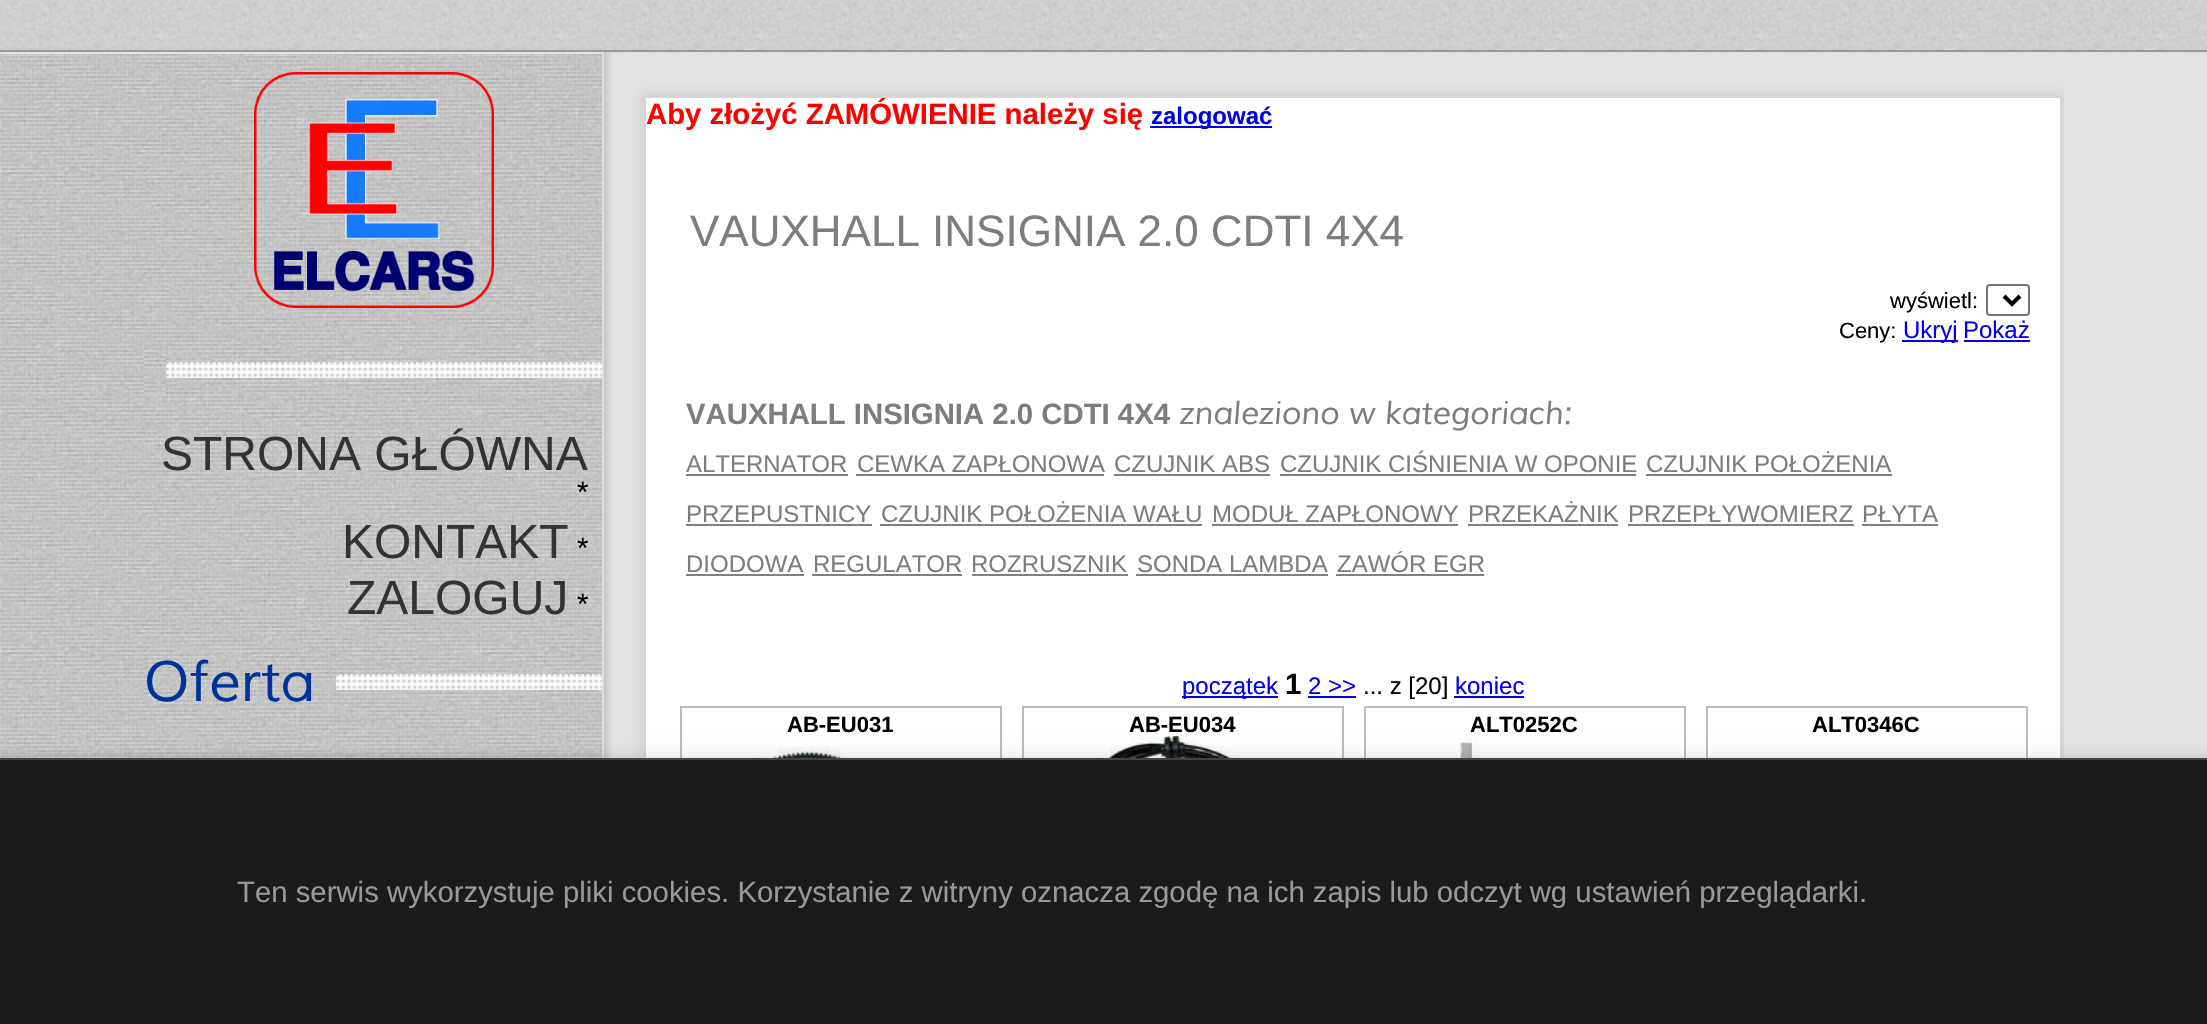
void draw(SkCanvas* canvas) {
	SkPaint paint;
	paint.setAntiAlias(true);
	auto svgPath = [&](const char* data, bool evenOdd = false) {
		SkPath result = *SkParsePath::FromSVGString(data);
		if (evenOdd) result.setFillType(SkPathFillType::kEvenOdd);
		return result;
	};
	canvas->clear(0xffffffff);
	canvas->drawImageRect(SkImages::DeferredFromEncodedData(SkData::MakeFromFileName("img1.png")), SkRect::MakeXYWH(0, 0, 2207, 50), SkSamplingOptions());
	paint.setColor(0xffa3a3a3);
	paint.setMaskFilter(SkMaskFilter::MakeBlur(kNormal_SkBlurStyle, 4));
	canvas->drawRect(SkRect::MakeXYWH(6, 56, 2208, 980), paint);
	paint.setMaskFilter(nullptr);
	paint.setColor(0xffe3e3e3);
	canvas->drawRect(SkRect::MakeXYWH(612, 52, 1595, 706), paint);
	paint.setColor(0xff9a9a9a);
	canvas->drawRect(SkRect::MakeXYWH(0, 50, 2207, 2), paint);
	canvas->drawImageRect(SkImages::DeferredFromEncodedData(SkData::MakeFromFileName("img2.png")), SkRect::MakeXYWH(0, 54, 602, 704), SkSamplingOptions());
	paint.setColor(0xffe5e5e5);
	canvas->drawRect(SkRect::MakeXYWH(0, 52, 602, 2), paint);
	canvas->drawImageRect(SkImages::DeferredFromEncodedData(SkData::MakeFromFileName("img3.png")), SkRect::MakeXYWH(254, 72, 240, 236), SkSamplingOptions());
	canvas->drawImageRect(SkImages::DeferredFromEncodedData(SkData::MakeFromFileName("img4.png")), SkRect::MakeXYWH(166, 362, 436, 16), SkSamplingOptions());
	canvas->drawImageRect(SkImages::DeferredFromEncodedData(SkData::MakeFromFileName("img5.png")), SkRect::MakeXYWH(144, 346, 22, 48), SkSamplingOptions());
	SkFont f1(fontMgr->matchFamilyStyle("Liberation Sans", SkFontStyle::Normal()), 48);
	f1.setSubpixel(true);
	paint.setColor(0xff333333);
	canvas->drawString("STRONA GŁÓWNA", 161, 470, f1, paint);
	SkFont f2(fontMgr->matchFamilyStyle("Liberation Sans", SkFontStyle::Normal()), 29.33);
	f2.setSubpixel(true);
	paint.setColor(0xff000000);
	canvas->drawString("*", 577, 502, f2, paint);
	paint.setColor(0xff333333);
	canvas->drawString("KONTAKT", 342, 558, f1, paint);
	paint.setColor(0xff000000);
	canvas->drawString("*", 577, 558, f2, paint);
	paint.setColor(0xff333333);
	canvas->drawString("ZALOGUJ", 347, 614, f1, paint);
	paint.setColor(0xff000000);
	canvas->drawString("*", 577, 614, f2, paint);
	canvas->drawImageRect(SkImages::DeferredFromEncodedData(SkData::MakeFromFileName("img6.png")), SkRect::MakeXYWH(336, 674, 266, 16), SkSamplingOptions());
	canvas->drawImageRect(SkImages::DeferredFromEncodedData(SkData::MakeFromFileName("img7.png")), SkRect::MakeXYWH(144, 658, 192, 48), SkSamplingOptions());
	SkFont f3(fontMgr->matchFamilyStyle("Muli", SkFontStyle::Italic()), 56);
	f3.setSubpixel(true);
	paint.setColor(0xff003399);
	canvas->drawString("Oferta", 144, 701, f3, paint);
	canvas->drawImageRect(SkImages::DeferredFromEncodedData(SkData::MakeFromFileName("img8.png")), SkRect::MakeXYWH(604, 52, 8, 706), SkSamplingOptions());
	paint.setColor(0xffdfdfdf);
	canvas->drawRect(SkRect::MakeXYWH(602, 52, 2, 706), paint);
	canvas->save();
	canvas->clipRect(SkRect::MakeXYWH(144, 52, 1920, 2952));
	paint.setColor(0xffd3d3d3);
	paint.setMaskFilter(SkMaskFilter::MakeBlur(kNormal_SkBlurStyle, 5));
	canvas->drawRect(SkRect::MakeXYWH(640, 92, 1426, 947), paint);
	paint.setMaskFilter(nullptr);
	canvas->restore();
	paint.setColor(0xffffffff);
	canvas->drawRect(SkRect::MakeXYWH(646, 98, 1414, 660), paint);
	SkFont f4(fontMgr->matchFamilyStyle("Liberation Sans", SkFontStyle::Bold()), 29.33);
	f4.setSubpixel(true);
	paint.setColor(0xffff0000);
	canvas->drawString("Aby złożyć ZAMÓWIENIE należy się", 646, 124, f4, paint);
	paint.setColor(0xff0000ee);
	canvas->drawRect(SkRect::MakeXYWH(1150, 126, 122, 2), paint);
	SkFont f5(fontMgr->matchFamilyStyle("Liberation Sans", SkFontStyle::Bold()), 24);
	f5.setSubpixel(true);
	canvas->drawString("zalogować", 1151, 124, f5, paint);
	SkFont f6(fontMgr->matchFamilyStyle("Liberation Sans", SkFontStyle::Normal()), 44);
	f6.setSubpixel(true);
	paint.setColor(0xff7d7d7d);
	canvas->drawString("VAUXHALL INSIGNIA 2.0 CDTI 4X4", 690, 246, f6, paint);
	SkFont f7(fontMgr->matchFamilyStyle("Liberation Sans", SkFontStyle::Normal()), 22);
	f7.setSubpixel(true);
	paint.setColor(0xff000000);
	canvas->drawString("wyświetl:", 1890, 308, f7, paint);
	paint.setStroke(true);
	paint.setStrokeWidth(2);
	paint.setColor(0xff767676);
	canvas->drawRoundRect(SkRect::MakeXYWH(1987, 285, 42, 30), 3, 3, paint);
	paint.setStrokeWidth(4);
	paint.setColor(0xff000000);
	canvas->drawPath(svgPath("M2004 296L2012 304L2020 296"), paint);
	paint.setStroke(false);
	canvas->drawString("Ceny:", 1839, 338, f7, paint);
	paint.setColor(0xff0000ee);
	canvas->drawRect(SkRect::MakeXYWH(1902, 340, 56, 2), paint);
	SkFont f8(fontMgr->matchFamilyStyle("Liberation Sans", SkFontStyle::Normal()), 24);
	f8.setSubpixel(true);
	canvas->drawString("Ukryj", 1903, 338, f8, paint);
	canvas->drawString("Pokaż", 1963, 338, f8, paint);
	canvas->drawRect(SkRect::MakeXYWH(1964, 340, 66, 2), paint);
	paint.setColor(0xff7d7d7d);
	canvas->drawString("VAUXHALL INSIGNIA 2.0 CDTI 4X4", 686, 424, f4, paint);
	SkFont f9(fontMgr->matchFamilyStyle("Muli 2", SkFontStyle::Italic()), 32);
	f9.setSubpixel(true);
	canvas->drawString("znaleziono w kategoriach:", 1179, 424, f9, paint);
	canvas->drawString("ALTERNATOR", 686, 472, f8, paint);
	paint.setColor(0xff808080);
	canvas->drawRect(SkRect::MakeXYWH(686, 474, 162, 2), paint);
	paint.setColor(0xff7d7d7d);
	canvas->drawString("CEWKA ZAPŁONOWA", 857, 472, f8, paint);
	paint.setColor(0xff808080);
	canvas->drawRect(SkRect::MakeXYWH(856, 474, 248, 2), paint);
	paint.setColor(0xff7d7d7d);
	canvas->drawString("CZUJNIK ABS", 1114, 472, f8, paint);
	paint.setColor(0xff808080);
	canvas->drawRect(SkRect::MakeXYWH(1114, 474, 156, 2), paint);
	paint.setColor(0xff7d7d7d);
	canvas->drawString("CZUJNIK CIŚNIENIA W OPONIE", 1280, 472, f8, paint);
	paint.setColor(0xff808080);
	canvas->drawRect(SkRect::MakeXYWH(1280, 474, 356, 2), paint);
	paint.setColor(0xff7d7d7d);
	canvas->drawString("CZUJNIK POŁOŻENIA", 1646, 472, f8, paint);
	paint.setColor(0xff808080);
	canvas->drawRect(SkRect::MakeXYWH(1646, 474, 246, 2), paint);
	paint.setColor(0xff7d7d7d);
	canvas->drawString("PRZEPUSTNICY", 686, 522, f8, paint);
	paint.setColor(0xff808080);
	canvas->drawRect(SkRect::MakeXYWH(686, 524, 186, 2), paint);
	paint.setColor(0xff7d7d7d);
	canvas->drawString("CZUJNIK POŁOŻENIA WAŁU", 881, 522, f8, paint);
	paint.setColor(0xff808080);
	canvas->drawRect(SkRect::MakeXYWH(880, 524, 322, 2), paint);
	paint.setColor(0xff7d7d7d);
	canvas->drawString("MODUŁ ZAPŁONOWY", 1212, 522, f8, paint);
	paint.setColor(0xff808080);
	canvas->drawRect(SkRect::MakeXYWH(1212, 524, 246, 2), paint);
	paint.setColor(0xff7d7d7d);
	canvas->drawString("PRZEKAŻNIK", 1468, 522, f8, paint);
	paint.setColor(0xff808080);
	canvas->drawRect(SkRect::MakeXYWH(1468, 524, 150, 2), paint);
	paint.setColor(0xff7d7d7d);
	canvas->drawString("PRZEPŁYWOMIERZ", 1628, 522, f8, paint);
	paint.setColor(0xff808080);
	canvas->drawRect(SkRect::MakeXYWH(1628, 524, 226, 2), paint);
	paint.setColor(0xff7d7d7d);
	canvas->drawString("PŁYTA", 1862, 522, f8, paint);
	paint.setColor(0xff808080);
	canvas->drawRect(SkRect::MakeXYWH(1862, 524, 76, 2), paint);
	paint.setColor(0xff7d7d7d);
	canvas->drawString("DIODOWA", 686, 572, f8, paint);
	paint.setColor(0xff808080);
	canvas->drawRect(SkRect::MakeXYWH(686, 574, 118, 2), paint);
	paint.setColor(0xff7d7d7d);
	canvas->drawString("REGULATOR", 813, 572, f8, paint);
	paint.setColor(0xff808080);
	canvas->drawRect(SkRect::MakeXYWH(812, 574, 150, 2), paint);
	paint.setColor(0xff7d7d7d);
	canvas->drawString("ROZRUSZNIK", 971, 572, f8, paint);
	paint.setColor(0xff808080);
	canvas->drawRect(SkRect::MakeXYWH(972, 574, 156, 2), paint);
	paint.setColor(0xff7d7d7d);
	canvas->drawString("SONDA LAMBDA", 1137, 572, f8, paint);
	paint.setColor(0xff808080);
	canvas->drawRect(SkRect::MakeXYWH(1136, 574, 192, 2), paint);
	paint.setColor(0xff7d7d7d);
	canvas->drawString("ZAWÓR EGR", 1337, 572, f8, paint);
	paint.setColor(0xff808080);
	canvas->drawRect(SkRect::MakeXYWH(1336, 574, 148, 2), paint);
	paint.setColor(0xff0000ee);
	canvas->drawRect(SkRect::MakeXYWH(1182, 696, 96, 2), paint);
	canvas->drawString("początek", 1182, 694, f8, paint);
	paint.setColor(0xff000000);
	canvas->drawString("1", 1285, 694, f4, paint);
	paint.setColor(0xff0000ee);
	canvas->drawString("2 >>", 1308, 694, f8, paint);
	canvas->drawRect(SkRect::MakeXYWH(1308, 696, 48, 2), paint);
	paint.setColor(0xff000000);
	canvas->drawString("... z [20]", 1363, 694, f8, paint);
	paint.setColor(0xff0000ee);
	canvas->drawString("koniec", 1455, 694, f8, paint);
	canvas->drawRect(SkRect::MakeXYWH(1454, 696, 70, 2), paint);
	paint.setStroke(true);
	paint.setStrokeWidth(2);
	paint.setColor(0xffbbbbbb);
	canvas->drawRect(SkRect::MakeXYWH(681, 707, 320, 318), paint);
	SkFont f10(fontMgr->matchFamilyStyle("Liberation Sans", SkFontStyle::Bold()), 22);
	f10.setSubpixel(true);
	paint.setStroke(false);
	paint.setColor(0xff000000);
	canvas->drawString("AB-EU031", 787, 732, f10, paint);
	canvas->drawImageRect(SkImages::DeferredFromEncodedData(SkData::MakeFromFileName("img9.png")), SkRect::MakeXYWH(696, 736, 280, 22), SkSamplingOptions());
	paint.setStroke(true);
	paint.setColor(0xffbbbbbb);
	canvas->drawRect(SkRect::MakeXYWH(1023, 707, 320, 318), paint);
	paint.setStroke(false);
	paint.setColor(0xff000000);
	canvas->drawString("AB-EU034", 1129, 732, f10, paint);
	canvas->drawImageRect(SkImages::DeferredFromEncodedData(SkData::MakeFromFileName("img10.png")), SkRect::MakeXYWH(1038, 736, 280, 22), SkSamplingOptions());
	paint.setStroke(true);
	paint.setColor(0xffbbbbbb);
	canvas->drawRect(SkRect::MakeXYWH(1365, 707, 320, 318), paint);
	paint.setStroke(false);
	paint.setColor(0xff000000);
	canvas->drawString("ALT0252C", 1470, 732, f10, paint);
	canvas->drawImageRect(SkImages::DeferredFromEncodedData(SkData::MakeFromFileName("img11.png")), SkRect::MakeXYWH(1397, 736, 243, 22), SkSamplingOptions());
	paint.setStroke(true);
	paint.setColor(0xffbbbbbb);
	canvas->drawRect(SkRect::MakeXYWH(1707, 707, 320, 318), paint);
	paint.setStroke(false);
	paint.setColor(0xff000000);
	canvas->drawString("ALT0346C", 1812, 732, f10, paint);
	paint.setColor(0x26000000);
	paint.setMaskFilter(SkMaskFilter::MakeBlur(kNormal_SkBlurStyle, 8));
	canvas->drawRect(SkRect::MakeXYWH(0, 758, 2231, 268), paint);
	paint.setMaskFilter(nullptr);
	paint.setColor(0xff1b1b1b);
	canvas->drawRect(SkRect::MakeXYWH(0, 760, 2207, 264), paint);
	paint.setColor(0xff444444);
	canvas->drawRect(SkRect::MakeXYWH(0, 758, 2207, 2), paint);
	paint.setColor(0xff999999);
	canvas->drawString("Ten serwis wykorzystuje pliki cookies. Korzystanie z witryny oznacza zgodę na ich zapis lub odczyt wg ustawień przeglądarki.", 237, 902, f2, paint);
}
